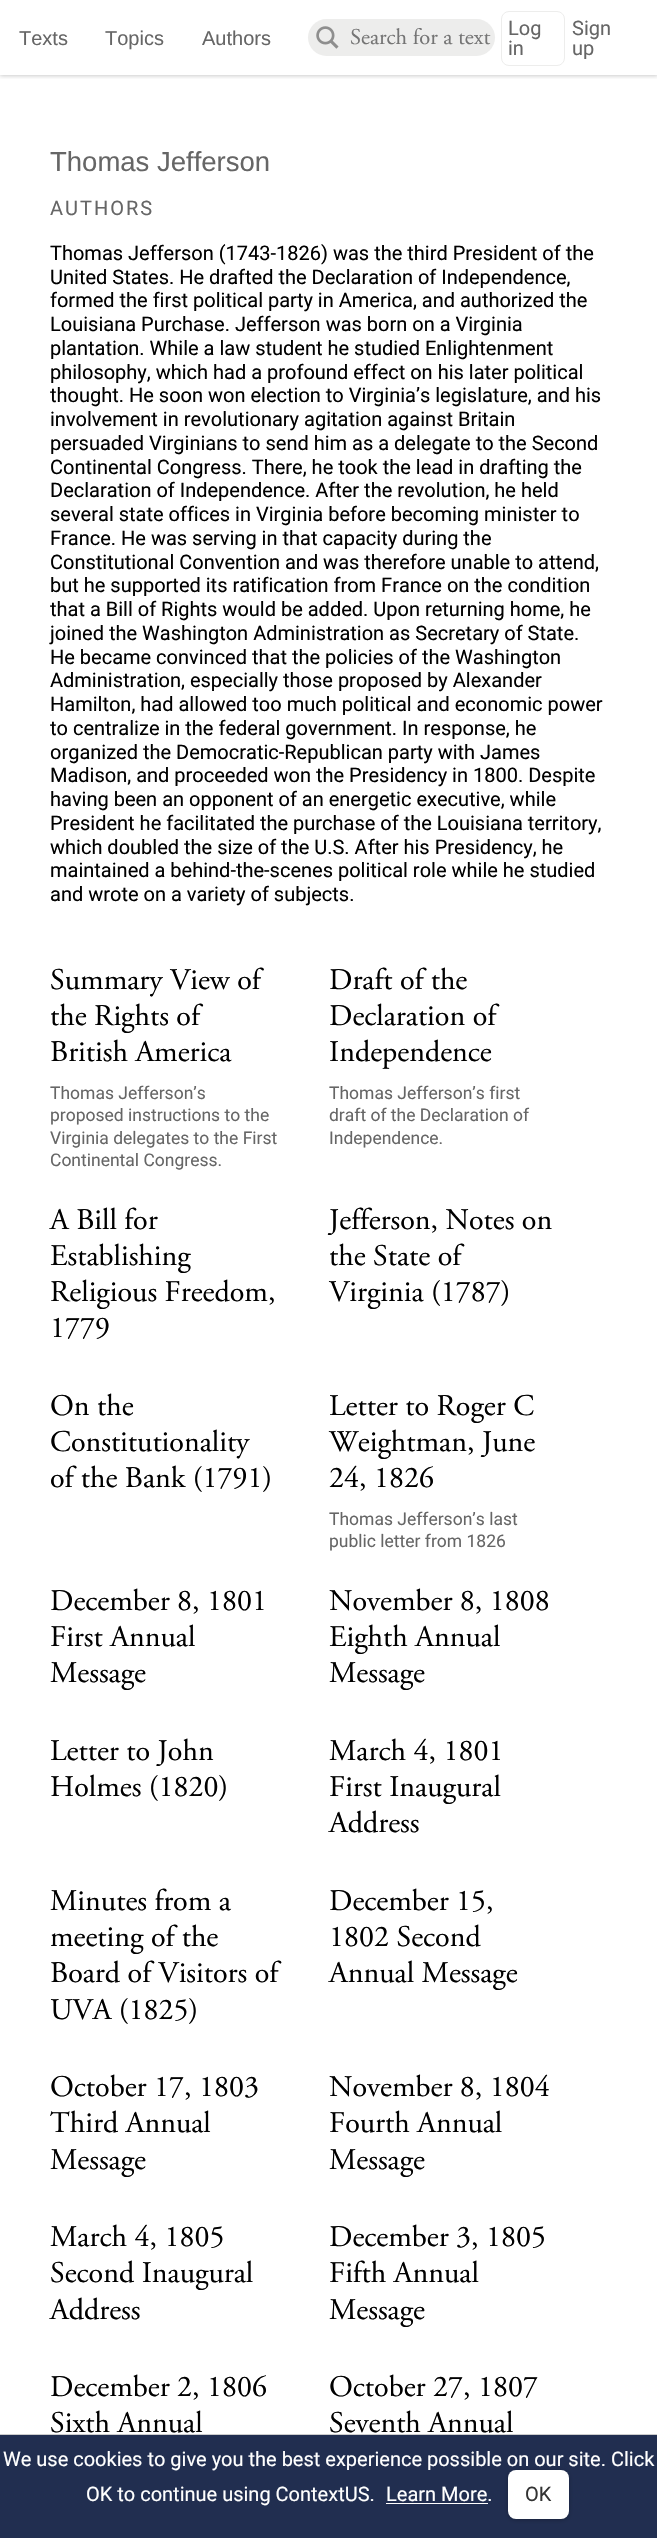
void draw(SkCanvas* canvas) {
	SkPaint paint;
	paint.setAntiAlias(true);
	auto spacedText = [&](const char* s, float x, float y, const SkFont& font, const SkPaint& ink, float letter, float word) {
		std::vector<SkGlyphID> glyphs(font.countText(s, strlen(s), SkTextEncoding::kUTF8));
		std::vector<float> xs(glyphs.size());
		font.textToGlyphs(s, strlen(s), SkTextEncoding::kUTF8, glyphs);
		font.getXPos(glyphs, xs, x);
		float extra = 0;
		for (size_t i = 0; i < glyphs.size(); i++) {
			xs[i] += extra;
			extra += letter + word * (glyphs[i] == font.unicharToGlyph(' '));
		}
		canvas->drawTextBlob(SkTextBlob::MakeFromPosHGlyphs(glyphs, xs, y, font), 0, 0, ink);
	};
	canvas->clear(0xffffffff);
	canvas->save();
	canvas->clipRect(SkRect::MakeXYWH(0, 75, 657, 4));
	paint.setColor(0x33000000);
	paint.setMaskFilter(SkMaskFilter::MakeBlur(kNormal_SkBlurStyle, 2));
	canvas->drawRect(SkRect::MakeXYWH(0, 1, 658, 75), paint);
	paint.setMaskFilter(nullptr);
	canvas->restore();
	SkFont f1(fontMgr->matchFamilyStyle("Liberation Sans", SkFontStyle::Normal()), 20);
	f1.setSubpixel(true);
	paint.setColor(0xff666666);
	canvas->drawString("Texts", 19, 45, f1, paint);
	canvas->drawString("Topics", 105, 45, f1, paint);
	canvas->drawString("Authors", 202, 45, f1, paint);
	paint.setColor(0xffededec);
	canvas->drawRoundRect(SkRect::MakeXYWH(308, 19, 187, 37), 18.5, 18.5, paint);
	canvas->drawImageRect(SkImages::DeferredFromEncodedData(SkData::MakeFromFileName("img1.png")), SkRect::MakeXYWH(316, 26, 23, 23), SkSamplingOptions());
	SkFont f2(fontMgr->matchFamilyStyle("Adobe Garamond", SkFontStyle::Normal()), 22.5);
	f2.setSubpixel(true);
	paint.setColor(0xff757575);
	canvas->drawString("Search for a text", 350, 44, f2, paint);
	paint.setStroke(true);
	paint.setStrokeWidth(1);
	paint.setColor(0xffededec);
	canvas->drawRoundRect(SkRect::MakeXYWH(501.5, 11.5, 63, 54), 7.5, 7.5, paint);
	SkFont f3(fontMgr->matchFamilyStyle("Roboto", SkFontStyle::Normal()), 20);
	f3.setSubpixel(true);
	paint.setStroke(false);
	paint.setColor(0xff666666);
	canvas->drawString("Log", 508, 35, f3, paint);
	canvas->drawString("in", 508, 55, f3, paint);
	canvas->drawString("Sign", 572, 35, f3, paint);
	canvas->drawString("up", 572, 55, f3, paint);
	SkFont f4(fontMgr->matchFamilyStyle("Liberation Sans", SkFontStyle::Normal()), 27.5);
	f4.setSubpixel(true);
	canvas->drawString("Thomas Jefferson", 50, 171, f4, paint);
	spacedText("AUTHORS", 50, 215, f3, paint, 2, 0);
	paint.setColor(0xff000000);
	canvas->drawString("Thomas Jefferson (1743-1826) was the third President of the", 50, 260, f3, paint);
	canvas->drawString("United States. He drafted the Declaration of Independence,", 50, 284, f3, paint);
	canvas->drawString("formed the first political party in America, and authorized the", 50, 307, f3, paint);
	canvas->drawString("Louisiana Purchase. Jefferson was born on a Virginia", 50, 331, f3, paint);
	canvas->drawString("plantation. While a law student he studied Enlightenment", 50, 355, f3, paint);
	canvas->drawString("philosophy, which had a profound effect on his later political", 50, 379, f3, paint);
	canvas->drawString("thought. He soon won election to Virginia’s legislature, and his", 50, 402, f3, paint);
	canvas->drawString("involvement in revolutionary agitation against Britain", 50, 426, f3, paint);
	canvas->drawString("persuaded Virginians to send him as a delegate to the Second", 50, 450, f3, paint);
	canvas->drawString("Continental Congress. There, he took the lead in drafting the", 50, 474, f3, paint);
	canvas->drawString("Declaration of Independence. After the revolution, he held", 50, 497, f3, paint);
	canvas->drawString("several state offices in Virginia before becoming minister to", 50, 521, f3, paint);
	canvas->drawString("France. He was serving in that capacity during the", 50, 545, f3, paint);
	canvas->drawString("Constitutional Convention and was therefore unable to attend,", 50, 569, f3, paint);
	canvas->drawString("but he supported its ratification from France on the condition", 50, 592, f3, paint);
	canvas->drawString("that a Bill of Rights would be added. Upon returning home, he", 50, 616, f3, paint);
	canvas->drawString("joined the Washington Administration as Secretary of State.", 50, 640, f3, paint);
	canvas->drawString("He became convinced that the policies of the Washington", 50, 664, f3, paint);
	canvas->drawString("Administration, especially those proposed by Alexander", 50, 687, f3, paint);
	canvas->drawString("Hamilton, had allowed too much political and economic power", 50, 711, f3, paint);
	canvas->drawString("to centralize in the federal government. In response, he", 50, 735, f3, paint);
	canvas->drawString("organized the Democratic-Republican party with James", 50, 759, f3, paint);
	canvas->drawString("Madison, and proceeded won the Presidency in 1800. Despite", 50, 782, f3, paint);
	canvas->drawString("having been an opponent of an energetic executive, while", 50, 806, f3, paint);
	canvas->drawString("President he facilitated the purchase of the Louisiana territory,", 50, 830, f3, paint);
	canvas->drawString("which doubled the size of the U.S. After his Presidency, he", 50, 854, f3, paint);
	canvas->drawString("maintained a behind-the-scenes political role while he studied", 50, 877, f3, paint);
	canvas->drawString("and wrote on a variety of subjects.", 50, 901, f3, paint);
	SkFont f5(fontMgr->matchFamilyStyle("Adobe Garamond", SkFontStyle::Normal()), 30);
	f5.setSubpixel(true);
	canvas->drawString("Summary View of", 50, 989, f5, paint);
	canvas->drawString("the Rights of", 50, 1025, f5, paint);
	canvas->drawString("British America", 50, 1061, f5, paint);
	SkFont f6(fontMgr->matchFamilyStyle("Roboto", SkFontStyle::Normal()), 17.5);
	f6.setSubpixel(true);
	paint.setColor(0xff666666);
	canvas->drawString("Thomas Jefferson’s", 50, 1099, f6, paint);
	canvas->drawString("proposed instructions to the", 50, 1121, f6, paint);
	canvas->drawString("Virginia delegates to the First", 50, 1144, f6, paint);
	canvas->drawString("Continental Congress.", 50, 1166, f6, paint);
	paint.setColor(0xff000000);
	canvas->drawString("Draft of the", 329, 989, f5, paint);
	canvas->drawString("Declaration of", 329, 1025, f5, paint);
	canvas->drawString("Independence", 329, 1061, f5, paint);
	paint.setColor(0xff666666);
	canvas->drawString("Thomas Jefferson’s first", 329, 1099, f6, paint);
	canvas->drawString("draft of the Declaration of", 329, 1121, f6, paint);
	canvas->drawString("Independence.", 329, 1144, f6, paint);
	paint.setColor(0xff000000);
	canvas->drawString("A Bill for", 50, 1229, f5, paint);
	canvas->drawString("Establishing", 50, 1265, f5, paint);
	canvas->drawString("Religious Freedom,", 50, 1301, f5, paint);
	canvas->drawString("1779", 50, 1337, f5, paint);
	canvas->drawString("Jefferson, Notes on", 329, 1229, f5, paint);
	canvas->drawString("the State of", 329, 1265, f5, paint);
	canvas->drawString("Virginia (1787)", 329, 1301, f5, paint);
	canvas->drawString("On the", 50, 1415, f5, paint);
	canvas->drawString("Constitutionality", 50, 1451, f5, paint);
	canvas->drawString("of the Bank (1791)", 50, 1487, f5, paint);
	canvas->drawString("Letter to Roger C", 329, 1415, f5, paint);
	canvas->drawString("Weightman, June", 329, 1451, f5, paint);
	canvas->drawString("24, 1826", 329, 1487, f5, paint);
	paint.setColor(0xff666666);
	canvas->drawString("Thomas Jefferson’s last", 329, 1525, f6, paint);
	canvas->drawString("public letter from 1826", 329, 1547, f6, paint);
	paint.setColor(0xff000000);
	canvas->drawString("December 8, 1801", 50, 1610, f5, paint);
	canvas->drawString("First Annual", 50, 1646, f5, paint);
	canvas->drawString("Message", 50, 1682, f5, paint);
	canvas->drawString("November 8, 1808", 329, 1610, f5, paint);
	canvas->drawString("Eighth Annual", 329, 1646, f5, paint);
	canvas->drawString("Message", 329, 1682, f5, paint);
	canvas->drawString("Letter to John", 50, 1760, f5, paint);
	canvas->drawString("Holmes (1820)", 50, 1796, f5, paint);
	canvas->drawString("March 4, 1801", 329, 1760, f5, paint);
	canvas->drawString("First Inaugural", 329, 1796, f5, paint);
	canvas->drawString("Address", 329, 1832, f5, paint);
	canvas->drawString("Minutes from a", 50, 1910, f5, paint);
	canvas->drawString("meeting of the", 50, 1946, f5, paint);
	canvas->drawString("Board of Visitors of", 50, 1982, f5, paint);
	canvas->drawString("UVA (1825)", 50, 2019, f5, paint);
	canvas->drawString("December 15,", 329, 1910, f5, paint);
	canvas->drawString("1802 Second", 329, 1946, f5, paint);
	canvas->drawString("Annual Message", 329, 1982, f5, paint);
	canvas->drawString("October 17, 1803", 50, 2096, f5, paint);
	canvas->drawString("Third Annual", 50, 2132, f5, paint);
	canvas->drawString("Message", 50, 2169, f5, paint);
	canvas->drawString("November 8, 1804", 329, 2096, f5, paint);
	canvas->drawString("Fourth Annual", 329, 2132, f5, paint);
	canvas->drawString("Message", 329, 2169, f5, paint);
	canvas->drawString("March 4, 1805", 50, 2246, f5, paint);
	canvas->drawString("Second Inaugural", 50, 2282, f5, paint);
	canvas->drawString("Address", 50, 2319, f5, paint);
	canvas->drawString("December 3, 1805", 329, 2246, f5, paint);
	canvas->drawString("Fifth Annual", 329, 2282, f5, paint);
	canvas->drawString("Message", 329, 2319, f5, paint);
	canvas->drawString("December 2, 1806", 50, 2396, f5, paint);
	canvas->drawString("Sixth Annual", 50, 2432, f5, paint);
	canvas->drawString("October 27, 1807", 329, 2396, f5, paint);
	canvas->drawString("Seventh Annual", 329, 2432, f5, paint);
	paint.setColor(0xff212e50);
	canvas->drawRect(SkRect::MakeXYWH(0, 2435, 657, 103), paint);
	paint.setColor(0xffcccccc);
	canvas->drawRect(SkRect::MakeXYWH(0, 2434, 657, 1), paint);
	paint.setColor(0xffffffff);
	canvas->drawString("We use cookies to give you the best experience possible on our site. Click", 3, 2466, f3, paint);
	canvas->drawString("OK to continue using ContextUS.", 86, 2501, f3, paint);
	canvas->drawString("Learn More.", 386, 2501, f3, paint);
	canvas->drawRect(SkRect::MakeXYWH(386, 2503, 102, 1), paint);
	paint.setColor(0x40000000);
	paint.setMaskFilter(SkMaskFilter::MakeBlur(kNormal_SkBlurStyle, 2));
	canvas->drawRoundRect(SkRect::MakeXYWH(508, 2471, 61, 49), 8, 8, paint);
	paint.setMaskFilter(nullptr);
	paint.setColor(0xffffffff);
	canvas->drawRoundRect(SkRect::MakeXYWH(508, 2470, 61, 49), 8, 8, paint);
	paint.setColor(0xff333333);
	canvas->drawString("OK", 525, 2501, f3, paint);
}
